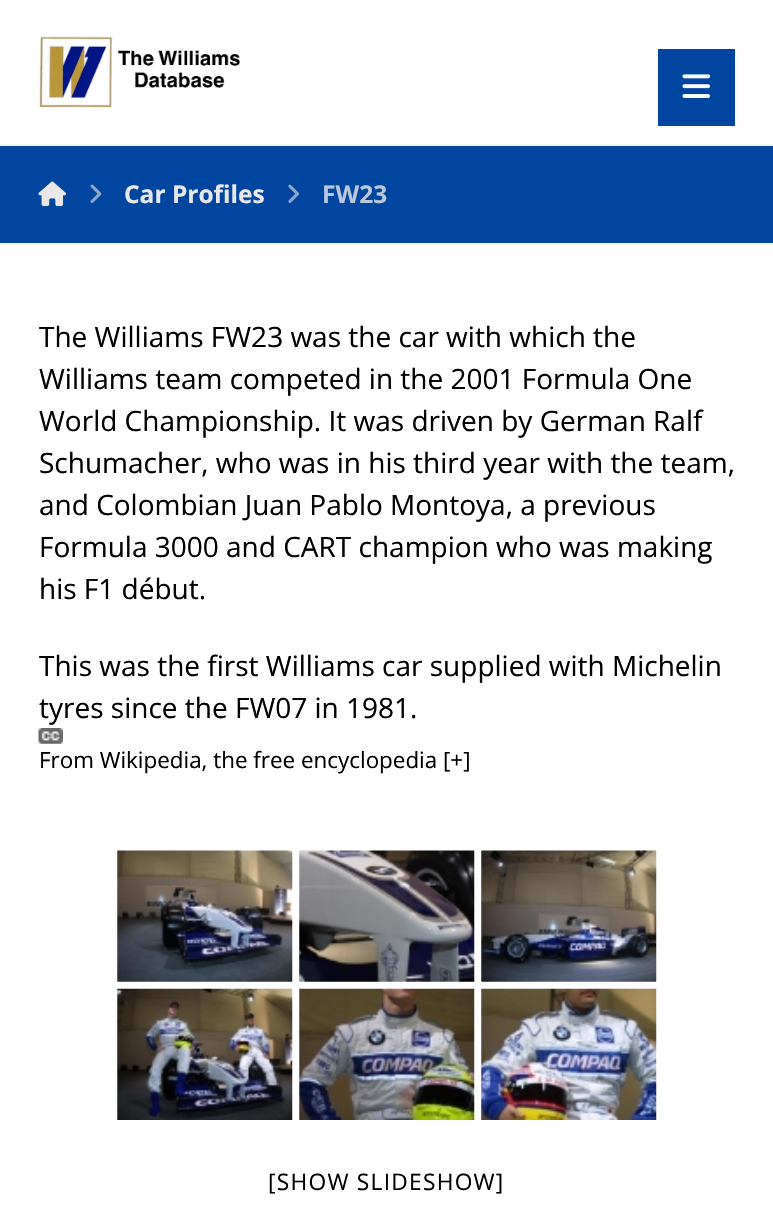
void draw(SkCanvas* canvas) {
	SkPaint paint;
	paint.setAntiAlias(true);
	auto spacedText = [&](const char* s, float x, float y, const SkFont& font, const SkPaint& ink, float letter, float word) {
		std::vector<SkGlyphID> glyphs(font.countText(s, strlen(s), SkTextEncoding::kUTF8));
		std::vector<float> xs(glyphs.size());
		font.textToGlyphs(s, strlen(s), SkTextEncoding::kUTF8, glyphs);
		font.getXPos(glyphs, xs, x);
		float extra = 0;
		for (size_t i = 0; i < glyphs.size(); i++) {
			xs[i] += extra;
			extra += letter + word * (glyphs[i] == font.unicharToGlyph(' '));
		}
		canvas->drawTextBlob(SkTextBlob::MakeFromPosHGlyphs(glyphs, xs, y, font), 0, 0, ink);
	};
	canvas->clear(0xffffffff);
	paint.setColor(0xfff4f4f4);
	canvas->drawRect(SkRect::MakeXYWH(0, 144, 773, 2), paint);
	canvas->drawImageRect(SkImages::DeferredFromEncodedData(SkData::MakeFromFileName("img1.png")), SkRect::MakeXYWH(38, 35, 203, 74), SkSamplingOptions());
	paint.setColor(0xff0045a0);
	canvas->drawRect(SkRect::MakeXYWH(658, 49, 77, 77), paint);
	canvas->drawImageRect(SkImages::DeferredFromEncodedData(SkData::MakeFromFileName("img2.png")), SkRect::MakeXYWH(682, 74, 29, 24), SkSamplingOptions());
	canvas->drawRect(SkRect::MakeXYWH(0, 146, 773, 97), paint);
	paint.setColor(0xfff4f4f4);
	canvas->drawRect(SkRect::MakeXYWH(0, 243, 773, 2), paint);
	canvas->drawImageRect(SkImages::DeferredFromEncodedData(SkData::MakeFromFileName("img3.png")), SkRect::MakeXYWH(38, 181, 28, 26), SkSamplingOptions());
	canvas->drawImageRect(SkImages::DeferredFromEncodedData(SkData::MakeFromFileName("img4.png")), SkRect::MakeXYWH(90, 184, 12, 19), SkSamplingOptions());
	SkFont f1(fontMgr->matchFamilyStyle("Open Sans", SkFontStyle::Bold()), 24.5);
	f1.setSubpixel(true);
	paint.setColor(0xffe8e8e8);
	canvas->drawString("Car Profiles", 124, 203, f1, paint);
	canvas->drawImageRect(SkImages::DeferredFromEncodedData(SkData::MakeFromFileName("img5.png")), SkRect::MakeXYWH(288, 184, 11, 19), SkSamplingOptions());
	paint.setColor(0xffbac7da);
	canvas->drawString("FW23", 322, 203, f1, paint);
	SkFont f2(fontMgr->matchFamilyStyle("Open Sans", SkFontStyle::Normal()), 28);
	f2.setSubpixel(true);
	paint.setColor(0xff000000);
	canvas->drawString("The Williams FW23 was the car with which the", 39, 347, f2, paint);
	canvas->drawString("Williams team competed in the 2001 Formula One", 39, 389, f2, paint);
	canvas->drawString("World Championship. It was driven by German Ralf", 39, 431, f2, paint);
	canvas->drawString("Schumacher, who was in his third year with the team,", 39, 473, f2, paint);
	canvas->drawString("and Colombian Juan Pablo Montoya, a previous", 39, 515, f2, paint);
	canvas->drawString("Formula 3000 and CART champion who was making", 39, 557, f2, paint);
	canvas->drawString("his F1 début.", 39, 599, f2, paint);
	canvas->drawString("This was the first Williams car supplied with Michelin", 39, 676, f2, paint);
	canvas->drawString("tyres since the FW07 in 1981.", 39, 718, f2, paint);
	canvas->drawImageRect(SkImages::DeferredFromEncodedData(SkData::MakeFromFileName("img6.png")), SkRect::MakeXYWH(38, 728, 25, 16), SkSamplingOptions());
	SkFont f3(fontMgr->matchFamilyStyle("Open Sans", SkFontStyle::Normal()), 22.4);
	f3.setSubpixel(true);
	canvas->drawString("From Wikipedia, the free encyclopedia [+]", 39, 768, f3, paint);
	canvas->drawImageRect(SkImages::DeferredFromEncodedData(SkData::MakeFromFileName("img7.png")), SkRect::MakeXYWH(117, 850, 176, 132), SkSamplingOptions());
	canvas->drawImageRect(SkImages::DeferredFromEncodedData(SkData::MakeFromFileName("img8.png")), SkRect::MakeXYWH(299, 850, 176, 132), SkSamplingOptions());
	canvas->drawImageRect(SkImages::DeferredFromEncodedData(SkData::MakeFromFileName("img9.png")), SkRect::MakeXYWH(481, 850, 176, 132), SkSamplingOptions());
	canvas->drawImageRect(SkImages::DeferredFromEncodedData(SkData::MakeFromFileName("img10.png")), SkRect::MakeXYWH(117, 988, 176, 132), SkSamplingOptions());
	canvas->drawImageRect(SkImages::DeferredFromEncodedData(SkData::MakeFromFileName("img11.png")), SkRect::MakeXYWH(299, 988, 176, 132), SkSamplingOptions());
	canvas->drawImageRect(SkImages::DeferredFromEncodedData(SkData::MakeFromFileName("img12.png")), SkRect::MakeXYWH(481, 988, 176, 132), SkSamplingOptions());
	SkFont f4(fontMgr->matchFamilyStyle("Open Sans", SkFontStyle::Normal()), 22.75);
	f4.setSubpixel(true);
	spacedText("[SHOW SLIDESHOW]", 268, 1190, f4, paint, 1.25, 0);
}
